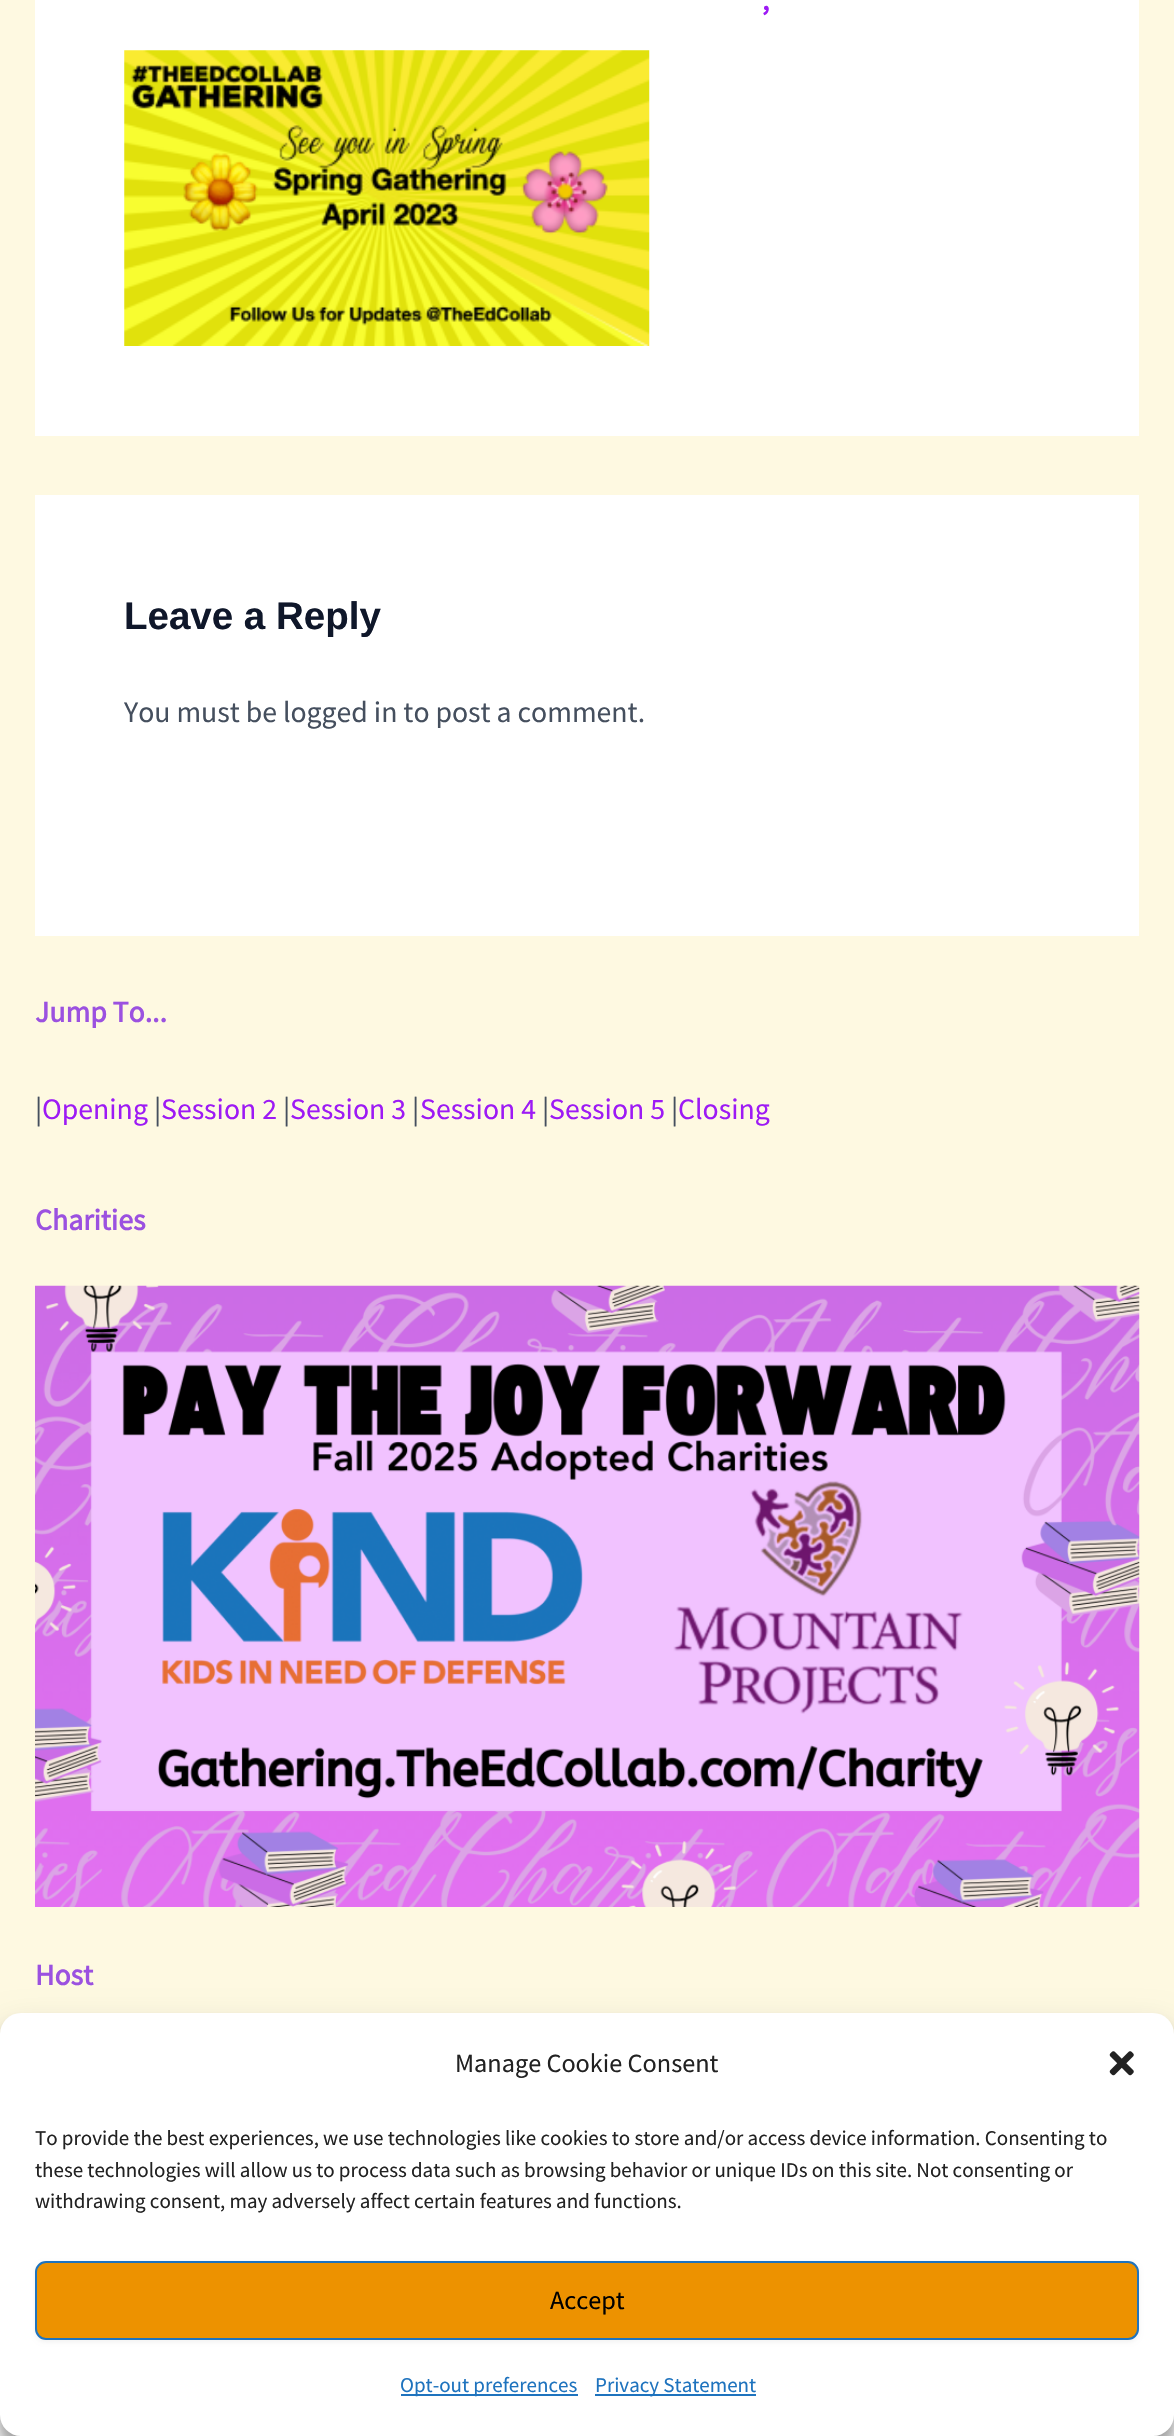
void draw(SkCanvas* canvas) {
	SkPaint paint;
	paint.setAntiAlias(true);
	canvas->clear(0xfffef9e1);
	paint.setColor(0xffffffff);
	canvas->drawRect(SkRect::MakeXYWH(35, 0, 1104, 436), paint);
	SkFont f1(fontMgr->matchFamilyStyle("Source Sans Pro", SkFontStyle::Bold()), 29.75);
	f1.setSubpixel(true);
	paint.setColor(0xff9d1af5);
	canvas->drawString(",", 762, 10, f1, paint);
	canvas->drawImageRect(SkImages::DeferredFromEncodedData(SkData::MakeFromFileName("img1.png")), SkRect::MakeXYWH(124, 50, 526, 296), SkSamplingOptions());
	paint.setColor(0xffffffff);
	canvas->drawRect(SkRect::MakeXYWH(35, 495, 1104, 441), paint);
	SkFont f2(fontMgr->matchFamilyStyle("Liberation Sans", SkFontStyle::Bold()), 38.5);
	f2.setSubpixel(true);
	paint.setColor(0xff0f172a);
	canvas->drawString("Leave a Reply", 124, 629, f2, paint);
	SkFont f3(fontMgr->matchFamilyStyle("Source Sans Pro", SkFontStyle::Normal()), 29.75);
	f3.setSubpixel(true);
	paint.setColor(0xff454f5e);
	canvas->drawString("You must be logged in to post a comment.", 124, 722, f3, paint);
	paint.setColor(0xff9b51e0);
	canvas->drawString("Jump To...", 35, 1022, f1, paint);
	paint.setColor(0xff454f5e);
	canvas->drawString("|", 35, 1119, f3, paint);
	paint.setColor(0xff9d1af5);
	canvas->drawString("Opening", 42, 1119, f3, paint);
	paint.setColor(0xff454f5e);
	canvas->drawString("|", 154, 1119, f3, paint);
	paint.setColor(0xff9d1af5);
	canvas->drawString("Session 2", 161, 1119, f3, paint);
	paint.setColor(0xff454f5e);
	canvas->drawString("|", 283, 1119, f3, paint);
	paint.setColor(0xff9d1af5);
	canvas->drawString("Session 3", 290, 1119, f3, paint);
	paint.setColor(0xff454f5e);
	canvas->drawString("|", 412, 1119, f3, paint);
	paint.setColor(0xff9d1af5);
	canvas->drawString("Session 4", 420, 1119, f3, paint);
	paint.setColor(0xff454f5e);
	canvas->drawString("|", 542, 1119, f3, paint);
	paint.setColor(0xff9d1af5);
	canvas->drawString("Session 5", 549, 1119, f3, paint);
	paint.setColor(0xff454f5e);
	canvas->drawString("|", 671, 1119, f3, paint);
	paint.setColor(0xff9d1af5);
	canvas->drawString("Closing", 678, 1119, f3, paint);
	paint.setColor(0xff9b51e0);
	canvas->drawString("Charities", 35, 1230, f1, paint);
	canvas->drawImageRect(SkImages::DeferredFromEncodedData(SkData::MakeFromFileName("img2.png")), SkRect::MakeXYWH(35, 1285, 1105, 622), SkSamplingOptions());
	canvas->drawString("Host", 35, 1985, f1, paint);
	paint.setColor(0xfff9f9f9);
	canvas->drawRect(SkRect::MakeXYWH(0, 2415, 1174, 21), paint);
	paint.setColor(0x3b000000);
	paint.setMaskFilter(SkMaskFilter::MakeBlur(kNormal_SkBlurStyle, 5));
	canvas->drawRoundRect(SkRect::MakeXYWH(0, 2023, 1174, 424), 21, 21, paint);
	paint.setMaskFilter(nullptr);
	paint.setColor(0x30000000);
	paint.setMaskFilter(SkMaskFilter::MakeBlur(kNormal_SkBlurStyle, 17.5));
	canvas->drawRoundRect(SkRect::MakeXYWH(0, 2030, 1174, 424), 21, 21, paint);
	paint.setMaskFilter(nullptr);
	paint.setColor(0xffffffff);
	canvas->drawRoundRect(SkRect::MakeXYWH(0, 2013, 1174, 423), 21, 21, paint);
	SkFont f4(fontMgr->matchFamilyStyle("Source Sans Pro", SkFontStyle::Normal()), 26.25);
	f4.setSubpixel(true);
	paint.setColor(0xff222222);
	canvas->drawString("Manage Cookie Consent", 455, 2072, f4, paint);
	canvas->drawImageRect(SkImages::DeferredFromEncodedData(SkData::MakeFromFileName("img3.png")), SkRect::MakeXYWH(1109, 2051, 25, 25), SkSamplingOptions());
	SkFont f5(fontMgr->matchFamilyStyle("Source Sans Pro", SkFontStyle::Normal()), 21);
	f5.setSubpixel(true);
	canvas->drawString("To provide the best experiences, we use technologies like cookies to store and/or access device information. Consenting to", 35, 2145, f5, paint);
	canvas->drawString("these technologies will allow us to process data such as browsing behavior or unique IDs on this site. Not consenting or", 35, 2177, f5, paint);
	canvas->drawString("withdrawing consent, may adversely affect certain features and functions.", 35, 2208, f5, paint);
	paint.setColor(0x0d000000);
	paint.setMaskFilter(SkMaskFilter::MakeBlur(kNormal_SkBlurStyle, 2));
	canvas->drawRoundRect(SkRect::MakeXYWH(35, 2263, 1104, 79), 11, 11, paint);
	paint.setMaskFilter(nullptr);
	paint.setColor(0xffed9200);
	canvas->drawRoundRect(SkRect::MakeXYWH(36, 2262, 1102, 77), 10, 10, paint);
	paint.setStroke(true);
	paint.setStrokeWidth(2);
	paint.setColor(0xff1e73be);
	canvas->drawRoundRect(SkRect::MakeXYWH(36, 2262, 1102, 77), 10, 10, paint);
	paint.setStroke(false);
	paint.setColor(0xff000000);
	canvas->drawString("Accept", 550, 2309, f4, paint);
	paint.setColor(0xff1e73be);
	canvas->drawRect(SkRect::MakeXYWH(401, 2394, 177, 2), paint);
	canvas->drawString("Opt-out preferences", 400, 2392, f5, paint);
	canvas->drawRect(SkRect::MakeXYWH(595, 2394, 161, 2), paint);
	canvas->drawString("Privacy Statement", 595, 2392, f5, paint);
}
